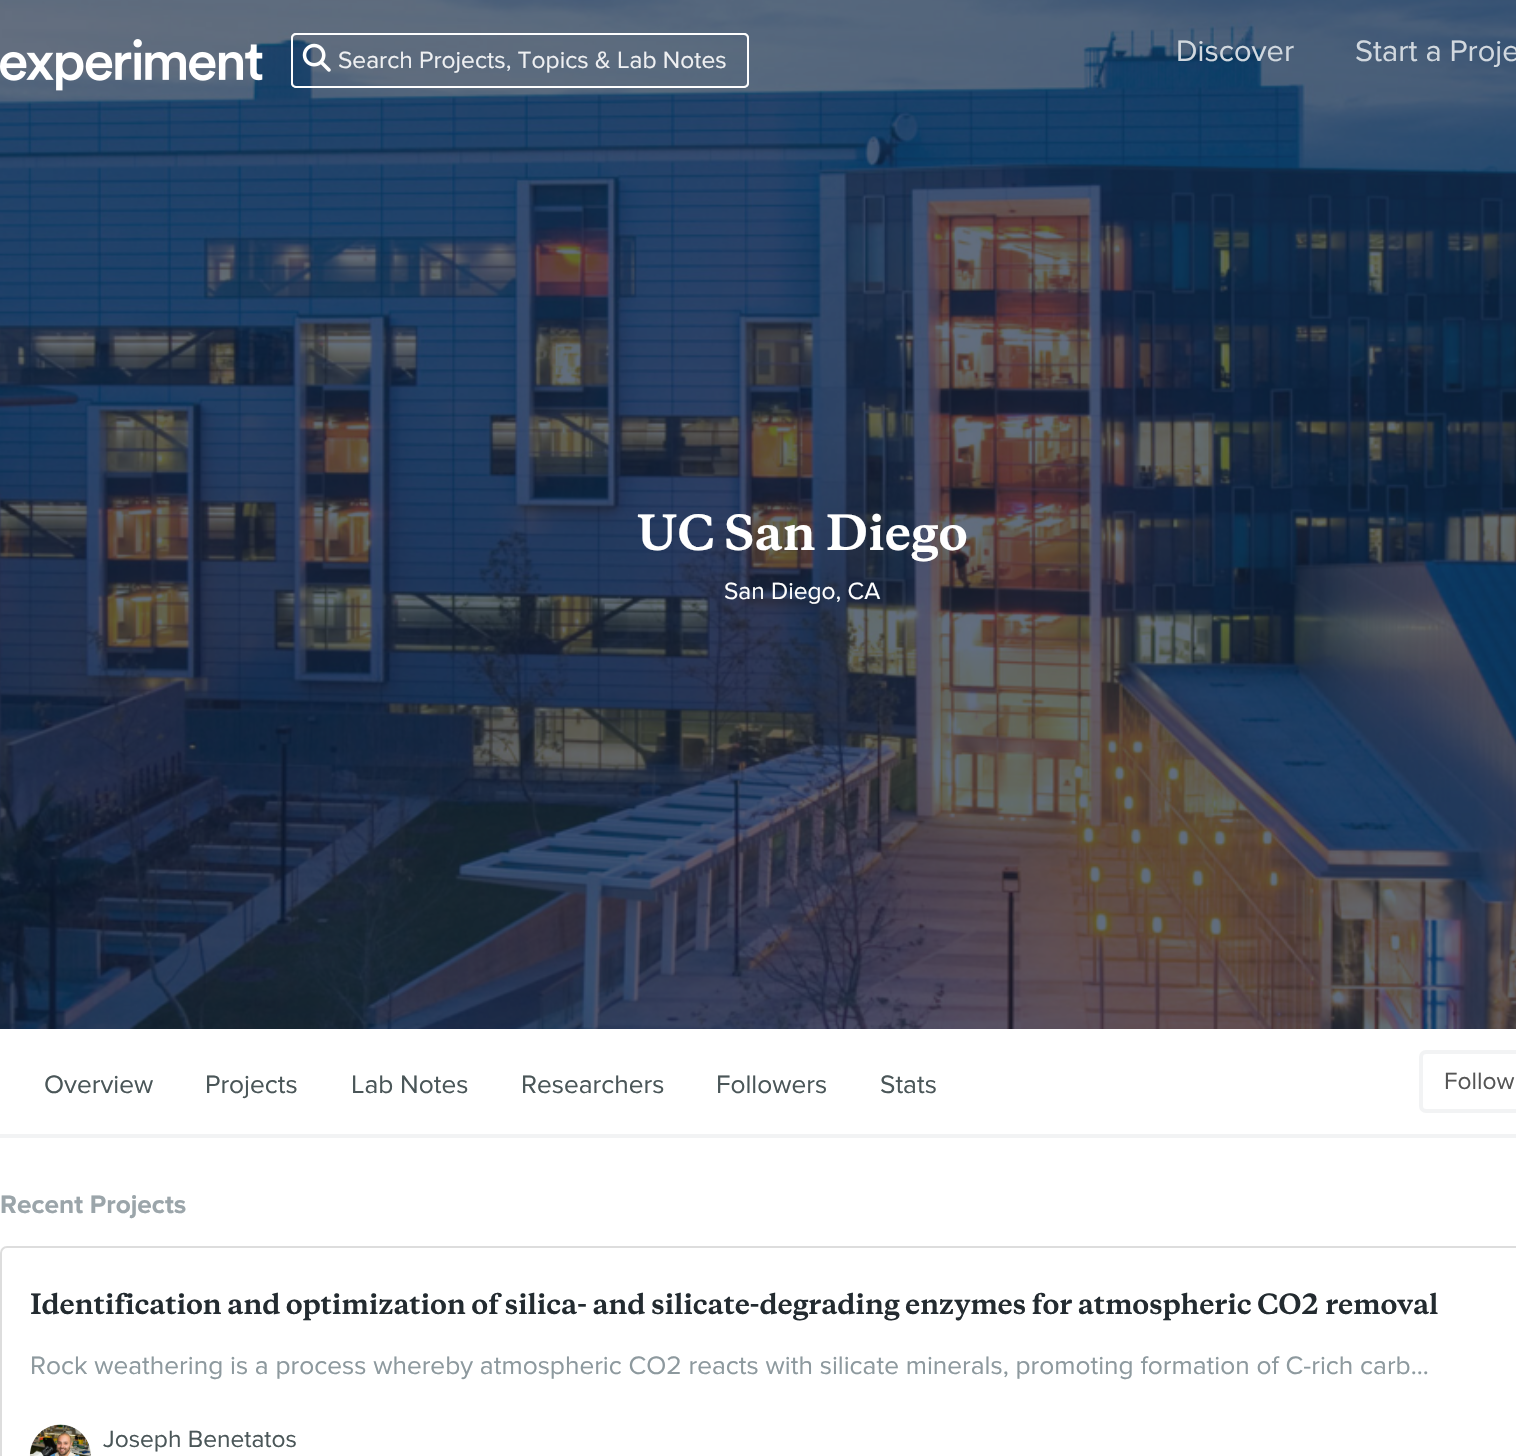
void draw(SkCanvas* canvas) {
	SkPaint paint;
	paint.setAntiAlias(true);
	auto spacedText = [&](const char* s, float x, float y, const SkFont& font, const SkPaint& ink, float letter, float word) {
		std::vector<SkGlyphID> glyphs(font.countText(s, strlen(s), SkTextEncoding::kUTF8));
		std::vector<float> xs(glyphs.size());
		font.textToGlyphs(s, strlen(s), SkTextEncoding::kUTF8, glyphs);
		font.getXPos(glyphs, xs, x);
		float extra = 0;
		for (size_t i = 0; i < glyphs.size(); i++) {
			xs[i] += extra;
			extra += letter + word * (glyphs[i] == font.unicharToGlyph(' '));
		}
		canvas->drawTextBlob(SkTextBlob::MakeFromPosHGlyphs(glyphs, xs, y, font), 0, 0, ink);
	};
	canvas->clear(0xffffffff);
	canvas->drawImageRect(SkImages::DeferredFromEncodedData(SkData::MakeFromFileName("img3.png")), SkRect::MakeXYWH(0, 0, 1516, 1029), SkSamplingOptions());
	canvas->drawImageRect(SkImages::DeferredFromEncodedData(SkData::MakeFromFileName("img1.png")), SkRect::MakeXYWH(0, 39, 263, 52), SkSamplingOptions());
	paint.setStroke(true);
	paint.setStrokeWidth(2);
	paint.setColor(0xe6ffffff);
	canvas->drawRoundRect(SkRect::MakeXYWH(292, 34, 456, 53), 4, 4, paint);
	canvas->drawRoundRect(SkRect::MakeXYWH(292, 34, 456, 53), 4, 4, paint);
	canvas->drawImageRect(SkImages::DeferredFromEncodedData(SkData::MakeFromFileName("img2.png")), SkRect::MakeXYWH(302, 43, 29, 29), SkSamplingOptions());
	SkFont f1(fontMgr->matchFamilyStyle("Proxima Nova", SkFontStyle::Normal()), 24.5);
	f1.setSubpixel(true);
	paint.setStroke(false);
	paint.setColor(0xffeff0f2);
	canvas->drawString("Search Projects, Topics & Lab Notes", 338, 68, f1, paint);
	SkFont f2(fontMgr->matchFamilyStyle("Proxima Nova", SkFontStyle::Normal()), 30.75);
	f2.setSubpixel(true);
	paint.setColor(0xffd1d8df);
	canvas->drawString("Discover", 1176, 61, f2, paint);
	canvas->drawString("Start a Proje", 1355, 61, f2, paint);
	SkFont f3(fontMgr->matchFamilyStyle("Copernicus", SkFontStyle::Bold()), 45.5);
	f3.setSubpixel(true);
	paint.setColor(0xffffffff);
	canvas->drawString("UC San Diego", 637, 550, f3, paint);
	canvas->drawString("San Diego, CA", 724, 599, f1, paint);
	paint.setColor(0xfff2f3f4);
	canvas->drawRect(SkRect::MakeXYWH(0, 1134, 1516, 4), paint);
	SkFont f4(fontMgr->matchFamilyStyle("Proxima Nova", SkFontStyle::Normal()), 26.25);
	f4.setSubpixel(true);
	paint.setColor(0xff4a5658);
	canvas->drawString("Overview", 44, 1093, f4, paint);
	canvas->drawString("Projects", 205, 1093, f4, paint);
	canvas->drawString("Lab Notes", 351, 1093, f4, paint);
	canvas->drawString("Researchers", 521, 1093, f4, paint);
	canvas->drawString("Followers", 716, 1093, f4, paint);
	canvas->drawString("Stats", 880, 1093, f4, paint);
	paint.setStroke(true);
	paint.setStrokeWidth(4);
	paint.setColor(0xfff2f3f4);
	canvas->drawRoundRect(SkRect::MakeXYWH(1421, 1052, 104, 59), 5, 5, paint);
	paint.setStroke(false);
	paint.setColor(0xff555555);
	canvas->drawString("Follow", 1444, 1089, f1, paint);
	SkFont f5(fontMgr->matchFamilyStyle("Proxima Nova", SkFontStyle::Bold()), 26.25);
	f5.setSubpixel(true);
	paint.setColor(0xff9ba5aa);
	canvas->drawString("Recent Projects", 0, 1213, f5, paint);
	paint.setStroke(true);
	paint.setStrokeWidth(2);
	paint.setColor(0xffdddddd);
	canvas->drawRoundRect(SkRect::MakeXYWH(1, 1247, 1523, 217), 6, 6, paint);
	SkFont f6(fontMgr->matchFamilyStyle("Copernicus", SkFontStyle::Bold()), 26.25);
	f6.setSubpixel(true);
	paint.setStroke(false);
	paint.setColor(0xff232b30);
	spacedText("Identification and optimization of silica- and silicate-degrading enzymes for atmospheric CO2 removal", 30, 1314, f6, paint, -0.18, 0);
	paint.setColor(0xff8d999e);
	canvas->drawString("Rock weathering is a process whereby atmospheric CO2 reacts with silicate minerals, promoting formation of C-rich carb...", 30, 1374, f4, paint);
	canvas->drawImageRect(SkImages::DeferredFromEncodedData(SkData::MakeFromFileName("img4.png")), SkRect::MakeXYWH(29, 1424, 62, 32), SkSamplingOptions());
	paint.setColor(0xff4a5658);
	canvas->drawString("Joseph Benetatos", 103, 1447, f1, paint);
}
